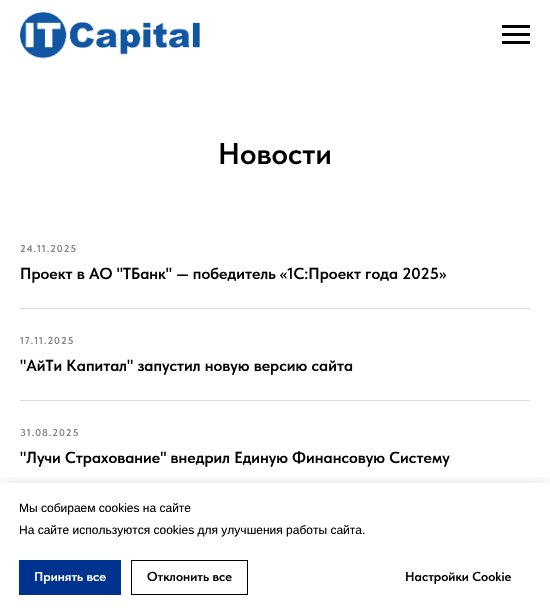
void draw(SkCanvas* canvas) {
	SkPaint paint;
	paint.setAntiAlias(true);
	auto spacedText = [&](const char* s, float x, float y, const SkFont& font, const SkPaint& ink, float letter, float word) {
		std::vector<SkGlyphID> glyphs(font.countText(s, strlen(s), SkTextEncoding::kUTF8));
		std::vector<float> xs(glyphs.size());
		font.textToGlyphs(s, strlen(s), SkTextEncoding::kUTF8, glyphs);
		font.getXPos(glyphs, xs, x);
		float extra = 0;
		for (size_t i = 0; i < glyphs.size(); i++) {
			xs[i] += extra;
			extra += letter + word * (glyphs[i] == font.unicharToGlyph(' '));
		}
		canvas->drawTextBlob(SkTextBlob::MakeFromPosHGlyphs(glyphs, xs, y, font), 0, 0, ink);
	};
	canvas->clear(0xffffffff);
	SkFont f1(fontMgr->matchFamilyStyle("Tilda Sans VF", SkFontStyle(600, SkFontStyle::kNormal_Width, SkFontStyle::kUpright_Slant)), 30);
	f1.setSubpixel(true);
	paint.setColor(0xff000000);
	canvas->drawString("Новости", 218, 164, f1, paint);
	SkFont f2(fontMgr->matchFamilyStyle("Tilda Sans VF", SkFontStyle(600, SkFontStyle::kNormal_Width, SkFontStyle::kUpright_Slant)), 10);
	f2.setSubpixel(true);
	paint.setColor(0xff808080);
	spacedText("24.11.2025", 20, 252, f2, paint, 1, 0);
	SkFont f3(fontMgr->matchFamilyStyle("Tilda Sans VF", SkFontStyle(600, SkFontStyle::kNormal_Width, SkFontStyle::kUpright_Slant)), 16);
	f3.setSubpixel(true);
	paint.setColor(0xff000000);
	canvas->drawString("Проект в АО \"ТБанк\" — победитель «1С:Проект года 2025»", 20, 279, f3, paint);
	paint.setColor(0xffd9d9d9);
	canvas->drawRect(SkRect::MakeXYWH(20, 308, 510, 1), paint);
	paint.setColor(0xff808080);
	spacedText("17.11.2025", 20, 344, f2, paint, 1, 0);
	paint.setColor(0xff000000);
	canvas->drawString("\"АйТи Капитал\" запустил новую версию сайта", 20, 371, f3, paint);
	paint.setColor(0xffd9d9d9);
	canvas->drawRect(SkRect::MakeXYWH(20, 400, 510, 1), paint);
	paint.setColor(0xff808080);
	spacedText("31.08.2025", 20, 436, f2, paint, 1, 0);
	paint.setColor(0xff000000);
	canvas->drawString("\"Лучи Страхование\" внедрил Единую Финансовую Систему", 20, 463, f3, paint);
	canvas->drawImageRect(SkImages::DeferredFromEncodedData(SkData::MakeFromFileName("img1.png")), SkRect::MakeXYWH(20, 12, 180, 47), SkSamplingOptions());
	canvas->drawRect(SkRect::MakeXYWH(502, 25, 28, 3), paint);
	canvas->drawRect(SkRect::MakeXYWH(502, 33, 28, 3), paint);
	canvas->drawRect(SkRect::MakeXYWH(502, 41, 28, 3), paint);
	canvas->save();
	canvas->clipRect(SkRect::MakeXYWH(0, 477, 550, 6));
	paint.setColor(0x1a000000);
	paint.setMaskFilter(SkMaskFilter::MakeBlur(kNormal_SkBlurStyle, 7.5));
	canvas->drawRect(SkRect::MakeXYWH(0, 483, 550, 132), paint);
	paint.setMaskFilter(nullptr);
	canvas->restore();
	SkFont f4(fontMgr->matchFamilyStyle("Liberation Sans", SkFontStyle::Normal()), 12);
	f4.setSubpixel(true);
	paint.setColor(0xff000000);
	canvas->drawString("Мы собираем cookies на сайте", 19, 512, f4, paint);
	canvas->drawString("На сайте используются cookies для улучшения работы сайта.", 19, 534, f4, paint);
	paint.setColor(0xff003390);
	canvas->drawRect(SkRect::MakeXYWH(19, 560, 102, 35), paint);
	SkFont f5(fontMgr->matchFamilyStyle("Tilda Sans VF", SkFontStyle(600, SkFontStyle::kNormal_Width, SkFontStyle::kUpright_Slant)), 13);
	f5.setSubpixel(true);
	paint.setColor(0xffffffff);
	canvas->drawString("Принять все", 34, 581, f5, paint);
	paint.setStroke(true);
	paint.setStrokeWidth(1);
	paint.setColor(0xff000000);
	canvas->drawRect(SkRect::MakeXYWH(131.5, 560.5, 116, 34), paint);
	paint.setStroke(false);
	canvas->drawString("Отклонить все", 147, 581, f5, paint);
	canvas->drawString("Настройки Cookie", 405, 581, f5, paint);
}
